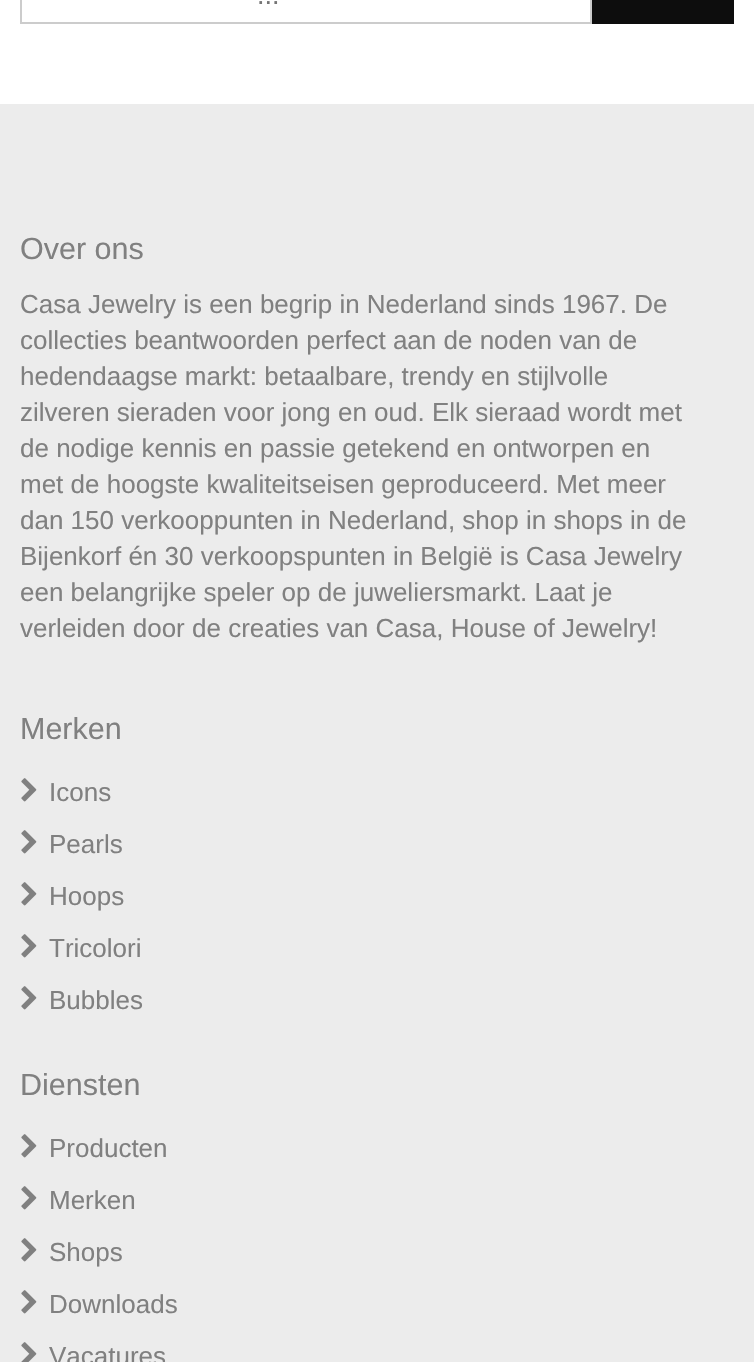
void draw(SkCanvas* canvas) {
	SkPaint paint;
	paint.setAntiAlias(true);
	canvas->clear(0xffffffff);
	paint.setStroke(true);
	paint.setStrokeWidth(2);
	paint.setColor(0xffcccccc);
	canvas->drawRect(SkRect::MakeXYWH(21, -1, 570, 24), paint);
	SkFont f1(fontMgr->matchFamilyStyle("Liberation Sans", SkFontStyle::Normal()), 27);
	f1.setSubpixel(true);
	paint.setStroke(false);
	paint.setColor(0xff757575);
	canvas->drawString("...", 257, 4, f1, paint);
	paint.setColor(0xff0d0d0d);
	canvas->drawRect(SkRect::MakeXYWH(592, 0, 142, 24), paint);
	paint.setColor(0xffececec);
	canvas->drawRect(SkRect::MakeXYWH(0, 104, 754, 1258), paint);
	SkFont f2(fontMgr->matchFamilyStyle("Liberation Sans", SkFontStyle::Normal()), 30.5);
	f2.setSubpixel(true);
	paint.setColor(0xff808080);
	canvas->drawString("Over ons", 20, 259, f2, paint);
	SkFont f3(fontMgr->matchFamilyStyle("Liberation Sans", SkFontStyle::Normal()), 26);
	f3.setSubpixel(true);
	canvas->drawString("Casa Jewelry is een begrip in Nederland sinds 1967. De", 20, 313, f3, paint);
	canvas->drawString("collecties beantwoorden perfect aan de noden van de", 20, 349, f3, paint);
	canvas->drawString("hedendaagse markt: betaalbare, trendy en stijlvolle", 20, 385, f3, paint);
	canvas->drawString("zilveren sieraden voor jong en oud. Elk sieraad wordt met", 20, 421, f3, paint);
	canvas->drawString("de nodige kennis en passie getekend en ontworpen en", 20, 457, f3, paint);
	canvas->drawString("met de hoogste kwaliteitseisen geproduceerd. Met meer", 20, 493, f3, paint);
	canvas->drawString("dan 150 verkooppunten in Nederland, shop in shops in de", 20, 529, f3, paint);
	canvas->drawString("Bijenkorf én 30 verkoopspunten in België is Casa Jewelry", 20, 565, f3, paint);
	canvas->drawString("een belangrijke speler op de juweliersmarkt. Laat je", 20, 601, f3, paint);
	canvas->drawString("verleiden door de creaties van Casa, House of Jewelry!", 20, 637, f3, paint);
	canvas->drawString("Merken", 20, 739, f2, paint);
	canvas->drawImageRect(SkImages::DeferredFromEncodedData(SkData::MakeFromFileName("img1.png")), SkRect::MakeXYWH(21, 778, 16, 24), SkSamplingOptions());
	canvas->drawString("Icons", 49, 801, f3, paint);
	canvas->drawImageRect(SkImages::DeferredFromEncodedData(SkData::MakeFromFileName("img1.png")), SkRect::MakeXYWH(21, 830, 16, 24), SkSamplingOptions());
	canvas->drawString("Pearls", 49, 853, f3, paint);
	canvas->drawImageRect(SkImages::DeferredFromEncodedData(SkData::MakeFromFileName("img1.png")), SkRect::MakeXYWH(21, 882, 16, 24), SkSamplingOptions());
	canvas->drawString("Hoops", 49, 905, f3, paint);
	canvas->drawImageRect(SkImages::DeferredFromEncodedData(SkData::MakeFromFileName("img1.png")), SkRect::MakeXYWH(21, 934, 16, 24), SkSamplingOptions());
	canvas->drawString("Tricolori", 49, 957, f3, paint);
	canvas->drawImageRect(SkImages::DeferredFromEncodedData(SkData::MakeFromFileName("img1.png")), SkRect::MakeXYWH(21, 986, 16, 24), SkSamplingOptions());
	canvas->drawString("Bubbles", 49, 1009, f3, paint);
	canvas->drawString("Diensten", 20, 1095, f2, paint);
	canvas->drawImageRect(SkImages::DeferredFromEncodedData(SkData::MakeFromFileName("img1.png")), SkRect::MakeXYWH(21, 1134, 16, 24), SkSamplingOptions());
	canvas->drawString("Producten", 49, 1157, f3, paint);
	canvas->drawImageRect(SkImages::DeferredFromEncodedData(SkData::MakeFromFileName("img1.png")), SkRect::MakeXYWH(21, 1186, 16, 24), SkSamplingOptions());
	canvas->drawString("Merken", 49, 1209, f3, paint);
	canvas->drawImageRect(SkImages::DeferredFromEncodedData(SkData::MakeFromFileName("img1.png")), SkRect::MakeXYWH(21, 1238, 16, 24), SkSamplingOptions());
	canvas->drawString("Shops", 49, 1261, f3, paint);
	canvas->drawImageRect(SkImages::DeferredFromEncodedData(SkData::MakeFromFileName("img1.png")), SkRect::MakeXYWH(21, 1290, 16, 24), SkSamplingOptions());
	canvas->drawString("Downloads", 49, 1313, f3, paint);
	canvas->drawImageRect(SkImages::DeferredFromEncodedData(SkData::MakeFromFileName("img2.png")), SkRect::MakeXYWH(21, 1342, 16, 20), SkSamplingOptions());
	canvas->drawString("Vacatures", 49, 1365, f3, paint);
}
